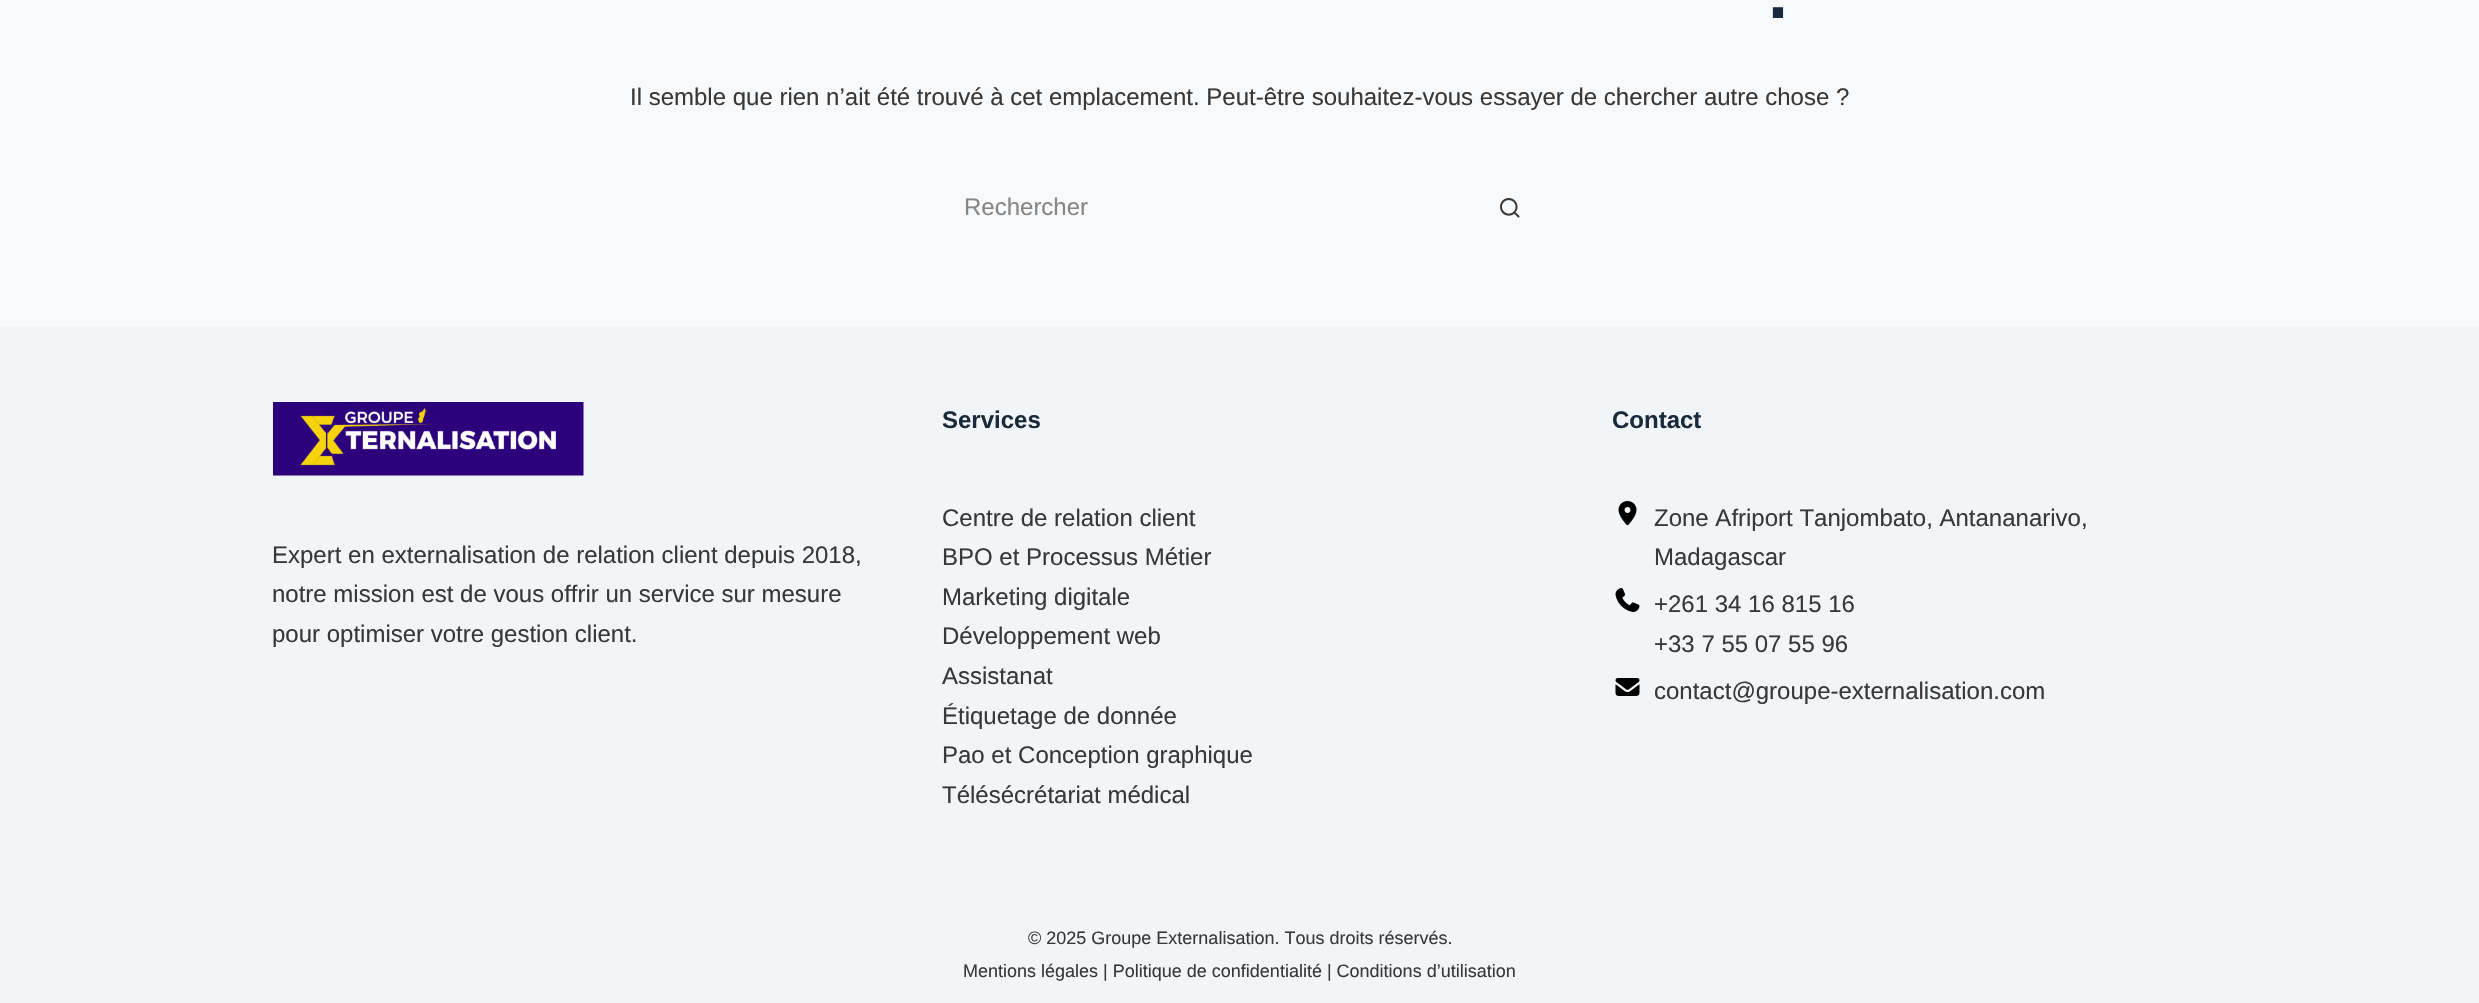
void draw(SkCanvas* canvas) {
	SkPaint paint;
	paint.setAntiAlias(true);
	canvas->clear(0xfff8f9fa);
	SkFont f1(fontMgr->matchFamilyStyle("Liberation Sans", SkFontStyle::Bold()), 72);
	f1.setSubpixel(true);
	paint.setColor(0xff192a3d);
	canvas->drawString(".", 1768, 18, f1, paint);
	SkFont f2(fontMgr->matchFamilyStyle("Liberation Sans", SkFontStyle::Normal()), 24);
	f2.setSubpixel(true);
	paint.setColor(0xff383839);
	canvas->drawString("Il semble que rien n’ait été trouvé à cet emplacement. Peut-être souhaitez-vous essayer de chercher autre chose ?", 630, 105, f2, paint);
	paint.setColor(0xff858586);
	canvas->drawString("Rechercher", 964, 215, f2, paint);
	canvas->drawImageRect(SkImages::DeferredFromEncodedData(SkData::MakeFromFileName("img1.png")), SkRect::MakeXYWH(1500, 198, 20, 20), SkSamplingOptions());
	paint.setColor(0xfff2f5f7);
	canvas->drawRect(SkRect::MakeXYWH(0, 327, 2479, 676), paint);
	canvas->drawImageRect(SkImages::DeferredFromEncodedData(SkData::MakeFromFileName("img2.png")), SkRect::MakeXYWH(273, 402, 311, 74), SkSamplingOptions());
	paint.setColor(0xff383839);
	canvas->drawString("Expert en externalisation de relation client depuis 2018,", 272, 563, f2, paint);
	canvas->drawString("notre mission est de vous offrir un service sur mesure", 272, 602, f2, paint);
	canvas->drawString("pour optimiser votre gestion client.", 272, 642, f2, paint);
	SkFont f3(fontMgr->matchFamilyStyle("Liberation Sans", SkFontStyle::Bold()), 24);
	f3.setSubpixel(true);
	paint.setColor(0xff192a3d);
	canvas->drawString("Services", 942, 428, f3, paint);
	paint.setColor(0xff383839);
	canvas->drawString("Centre de relation client", 942, 526, f2, paint);
	canvas->drawString("BPO et Processus Métier", 942, 565, f2, paint);
	canvas->drawString("Marketing digitale", 942, 605, f2, paint);
	canvas->drawString("Développement web", 942, 644, f2, paint);
	canvas->drawString("Assistanat", 942, 684, f2, paint);
	canvas->drawString("Étiquetage de donnée", 942, 724, f2, paint);
	canvas->drawString("Pao et Conception graphique", 942, 763, f2, paint);
	canvas->drawString("Télésécrétariat médical", 942, 803, f2, paint);
	paint.setColor(0xff192a3d);
	canvas->drawString("Contact", 1612, 428, f3, paint);
	canvas->drawImageRect(SkImages::DeferredFromEncodedData(SkData::MakeFromFileName("img3.png")), SkRect::MakeXYWH(1618, 501, 19, 25), SkSamplingOptions());
	paint.setColor(0xff383839);
	canvas->drawString("Zone Afriport Tanjombato, Antananarivo,", 1654, 526, f2, paint);
	canvas->drawString("Madagascar", 1654, 565, f2, paint);
	canvas->drawImageRect(SkImages::DeferredFromEncodedData(SkData::MakeFromFileName("img4.png")), SkRect::MakeXYWH(1615, 588, 25, 24), SkSamplingOptions());
	canvas->drawString("+261 34 16 815 16", 1654, 612, f2, paint);
	canvas->drawString("+33 7 55 07 55 96", 1654, 652, f2, paint);
	canvas->drawImageRect(SkImages::DeferredFromEncodedData(SkData::MakeFromFileName("img5.png")), SkRect::MakeXYWH(1615, 678, 25, 18), SkSamplingOptions());
	canvas->drawString("contact@groupe-externalisation.com", 1654, 699, f2, paint);
	SkFont f4(fontMgr->matchFamilyStyle("Liberation Sans", SkFontStyle::Normal()), 18);
	f4.setSubpixel(true);
	canvas->drawString("© 2025 Groupe Externalisation. Tous droits réservés.", 1028, 944, f4, paint);
	canvas->drawString("Mentions légales | Politique de confidentialité | Conditions d’utilisation", 963, 977, f4, paint);
}
